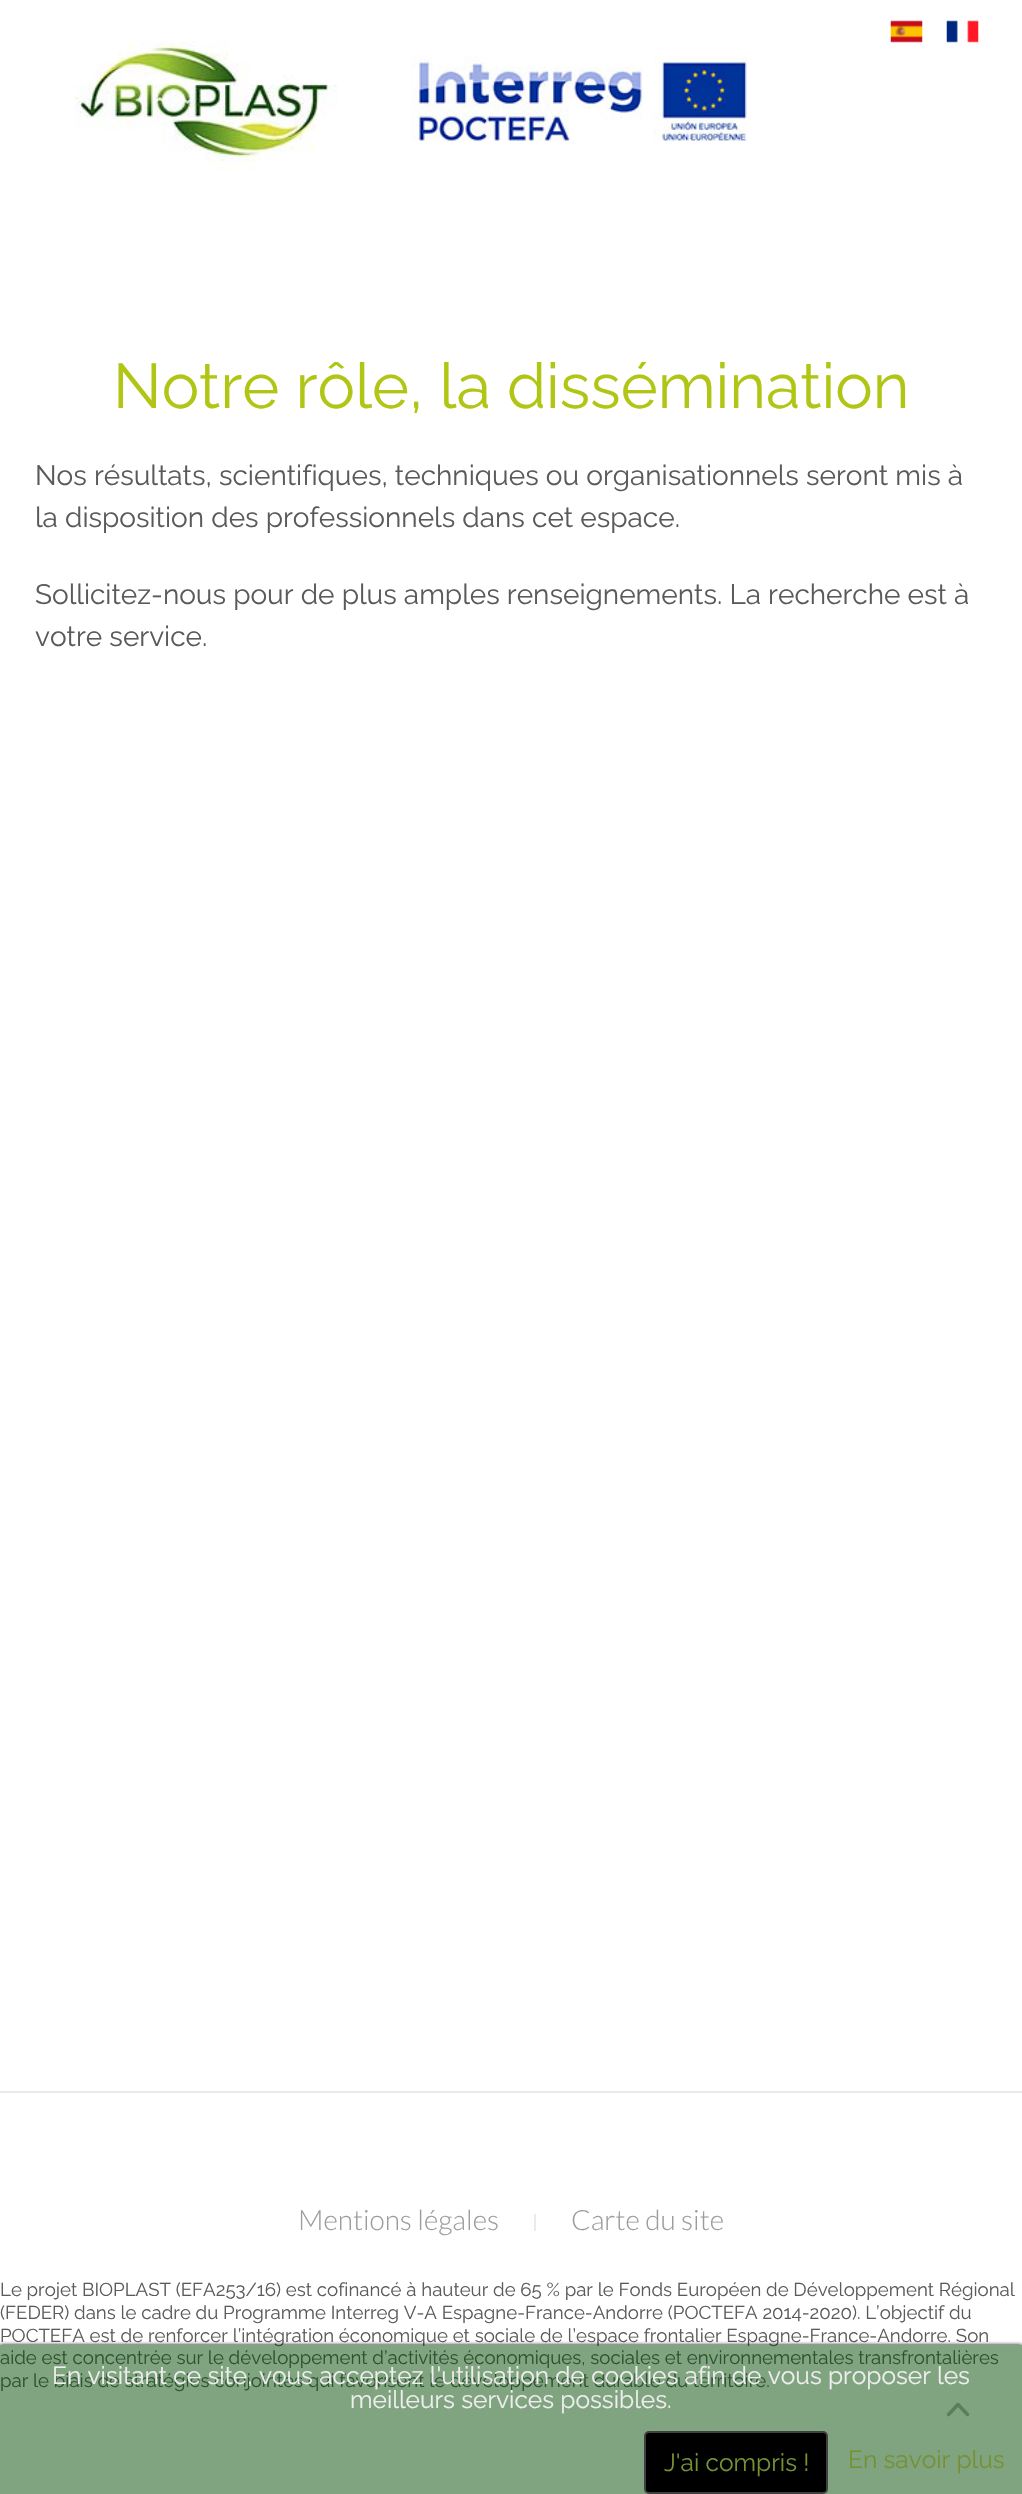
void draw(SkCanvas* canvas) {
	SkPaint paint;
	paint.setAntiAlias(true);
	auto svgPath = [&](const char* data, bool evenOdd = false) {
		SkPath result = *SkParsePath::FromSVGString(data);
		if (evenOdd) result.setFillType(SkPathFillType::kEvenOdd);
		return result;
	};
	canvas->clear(0xffffffff);
	canvas->drawImageRect(SkImages::DeferredFromEncodedData(SkData::MakeFromFileName("img1.png")), SkRect::MakeXYWH(890, 20, 33, 23), SkSamplingOptions());
	canvas->drawImageRect(SkImages::DeferredFromEncodedData(SkData::MakeFromFileName("img2.png")), SkRect::MakeXYWH(946, 20, 33, 23), SkSamplingOptions());
	canvas->drawImageRect(SkImages::DeferredFromEncodedData(SkData::MakeFromFileName("img3.png")), SkRect::MakeXYWH(74, 41, 264, 129), SkSamplingOptions());
	canvas->drawImageRect(SkImages::DeferredFromEncodedData(SkData::MakeFromFileName("img4.png")), SkRect::MakeXYWH(411, 56, 337, 85), SkSamplingOptions());
	SkFont f1(fontMgr->matchFamilyStyle("Raleway", SkFontStyle(100, SkFontStyle::kNormal_Width, SkFontStyle::kUpright_Slant)), 63);
	f1.setSubpixel(true);
	paint.setColor(0xffb1c614);
	canvas->drawString("Notre rôle, la dissémination", 113, 408, f1, paint);
	SkFont f2(fontMgr->matchFamilyStyle("Raleway", SkFontStyle(100, SkFontStyle::kNormal_Width, SkFontStyle::kUpright_Slant)), 28);
	f2.setSubpixel(true);
	paint.setColor(0xff5a5a5a);
	canvas->drawString("Nos résultats, scientifiques, techniques ou organisationnels seront mis à", 35, 485, f2, paint);
	canvas->drawString("la disposition des professionnels dans cet espace.", 35, 527, f2, paint);
	canvas->drawString("Sollicitez-nous pour de plus amples renseignements. La recherche est à", 35, 604, f2, paint);
	canvas->drawString("votre service.", 35, 646, f2, paint);
	paint.setColor(0xffebebeb);
	canvas->drawRect(SkRect::MakeXYWH(0, 2091, 1022, 2), paint);
	SkFont f3(fontMgr->matchFamilyStyle("Lato", SkFontStyle(300, SkFontStyle::kNormal_Width, SkFontStyle::kUpright_Slant)), 28);
	f3.setSubpixel(true);
	paint.setColor(0xff9c9c9c);
	canvas->drawString("Mentions légales", 298, 2230, f3, paint);
	paint.setColor(0xffebebeb);
	canvas->drawRect(SkRect::MakeXYWH(534, 2214, 2, 17), paint);
	paint.setColor(0xff9c9c9c);
	canvas->drawString("Carte du site", 571, 2230, f3, paint);
	SkFont f4(fontMgr->matchFamilyStyle("Raleway", SkFontStyle(100, SkFontStyle::kNormal_Width, SkFontStyle::kUpright_Slant)), 18.67);
	f4.setSubpixel(true);
	paint.setColor(0xff5a5a5a);
	canvas->drawString("Le projet BIOPLAST (EFA253/16) est cofinancé à hauteur de 65 % par le Fonds Européen de Développement Régional", 0, 2296, f4, paint);
	canvas->drawString("(FEDER) dans le cadre du Programme Interreg V-A Espagne-France-Andorre (POCTEFA 2014-2020). L’objectif du", 0, 2319, f4, paint);
	canvas->drawString("POCTEFA est de renforcer l’intégration économique et sociale de l’espace frontalier Espagne-France-Andorre. Son", 0, 2342, f4, paint);
	canvas->drawString("aide est concentrée sur le développement d’activités économiques, sociales et environnementales transfrontalières", 0, 2364, f4, paint);
	canvas->drawString("par le biais de stratégies conjointes qui favorisent le développement durable du territoire.", 0, 2387, f4, paint);
	paint.setStroke(true);
	paint.setStrokeWidth(3.5);
	paint.setStrokeCap(SkPaint::kRound_Cap);
	paint.setStrokeJoin(SkPaint::kRound_Join);
	paint.setColor(0xffb2b2b2);
	canvas->drawPath(svgPath("M967.5 2414.5L958 2404.5L948.5 2414.5"), paint);
	canvas->save();
	canvas->clipRect(SkRect::MakeXYWH(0, 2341, 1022, 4));
	paint.setStroke(false);
	paint.setColor(0xff000000);
	paint.setMaskFilter(SkMaskFilter::MakeBlur(kNormal_SkBlurStyle, 2));
	canvas->drawRect(SkRect::MakeXYWH(0, 2345, 1022, 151), paint);
	paint.setMaskFilter(nullptr);
	canvas->restore();
	paint.setColor(0x80014802);
	canvas->drawRect(SkRect::MakeXYWH(0, 2345, 1022, 149), paint);
	SkFont f5(fontMgr->matchFamilyStyle("Raleway", SkFontStyle(100, SkFontStyle::kNormal_Width, SkFontStyle::kUpright_Slant)), 24.5);
	f5.setSubpixel(true);
	paint.setColor(0xffeeeeee);
	canvas->drawString("En visitant ce site, vous acceptez l'utilisation de cookies afin de vous proposer les", 52, 2384, f5, paint);
	canvas->drawString("meilleurs services possibles.", 350, 2408, f5, paint);
	paint.setColor(0xff000000);
	canvas->drawRoundRect(SkRect::MakeXYWH(645, 2432, 182, 61), 4, 4, paint);
	paint.setStroke(true);
	paint.setStrokeWidth(2);
	paint.setStrokeCap(SkPaint::kButt_Cap);
	paint.setStrokeJoin(SkPaint::kMiter_Join);
	paint.setColor(0xff404040);
	canvas->drawRoundRect(SkRect::MakeXYWH(645, 2432, 182, 61), 4, 4, paint);
	paint.setStroke(false);
	paint.setColor(0xff759133);
	canvas->drawString("J'ai compris !", 664, 2471, f5, paint);
	canvas->drawString("En savoir plus", 848, 2468, f5, paint);
}
